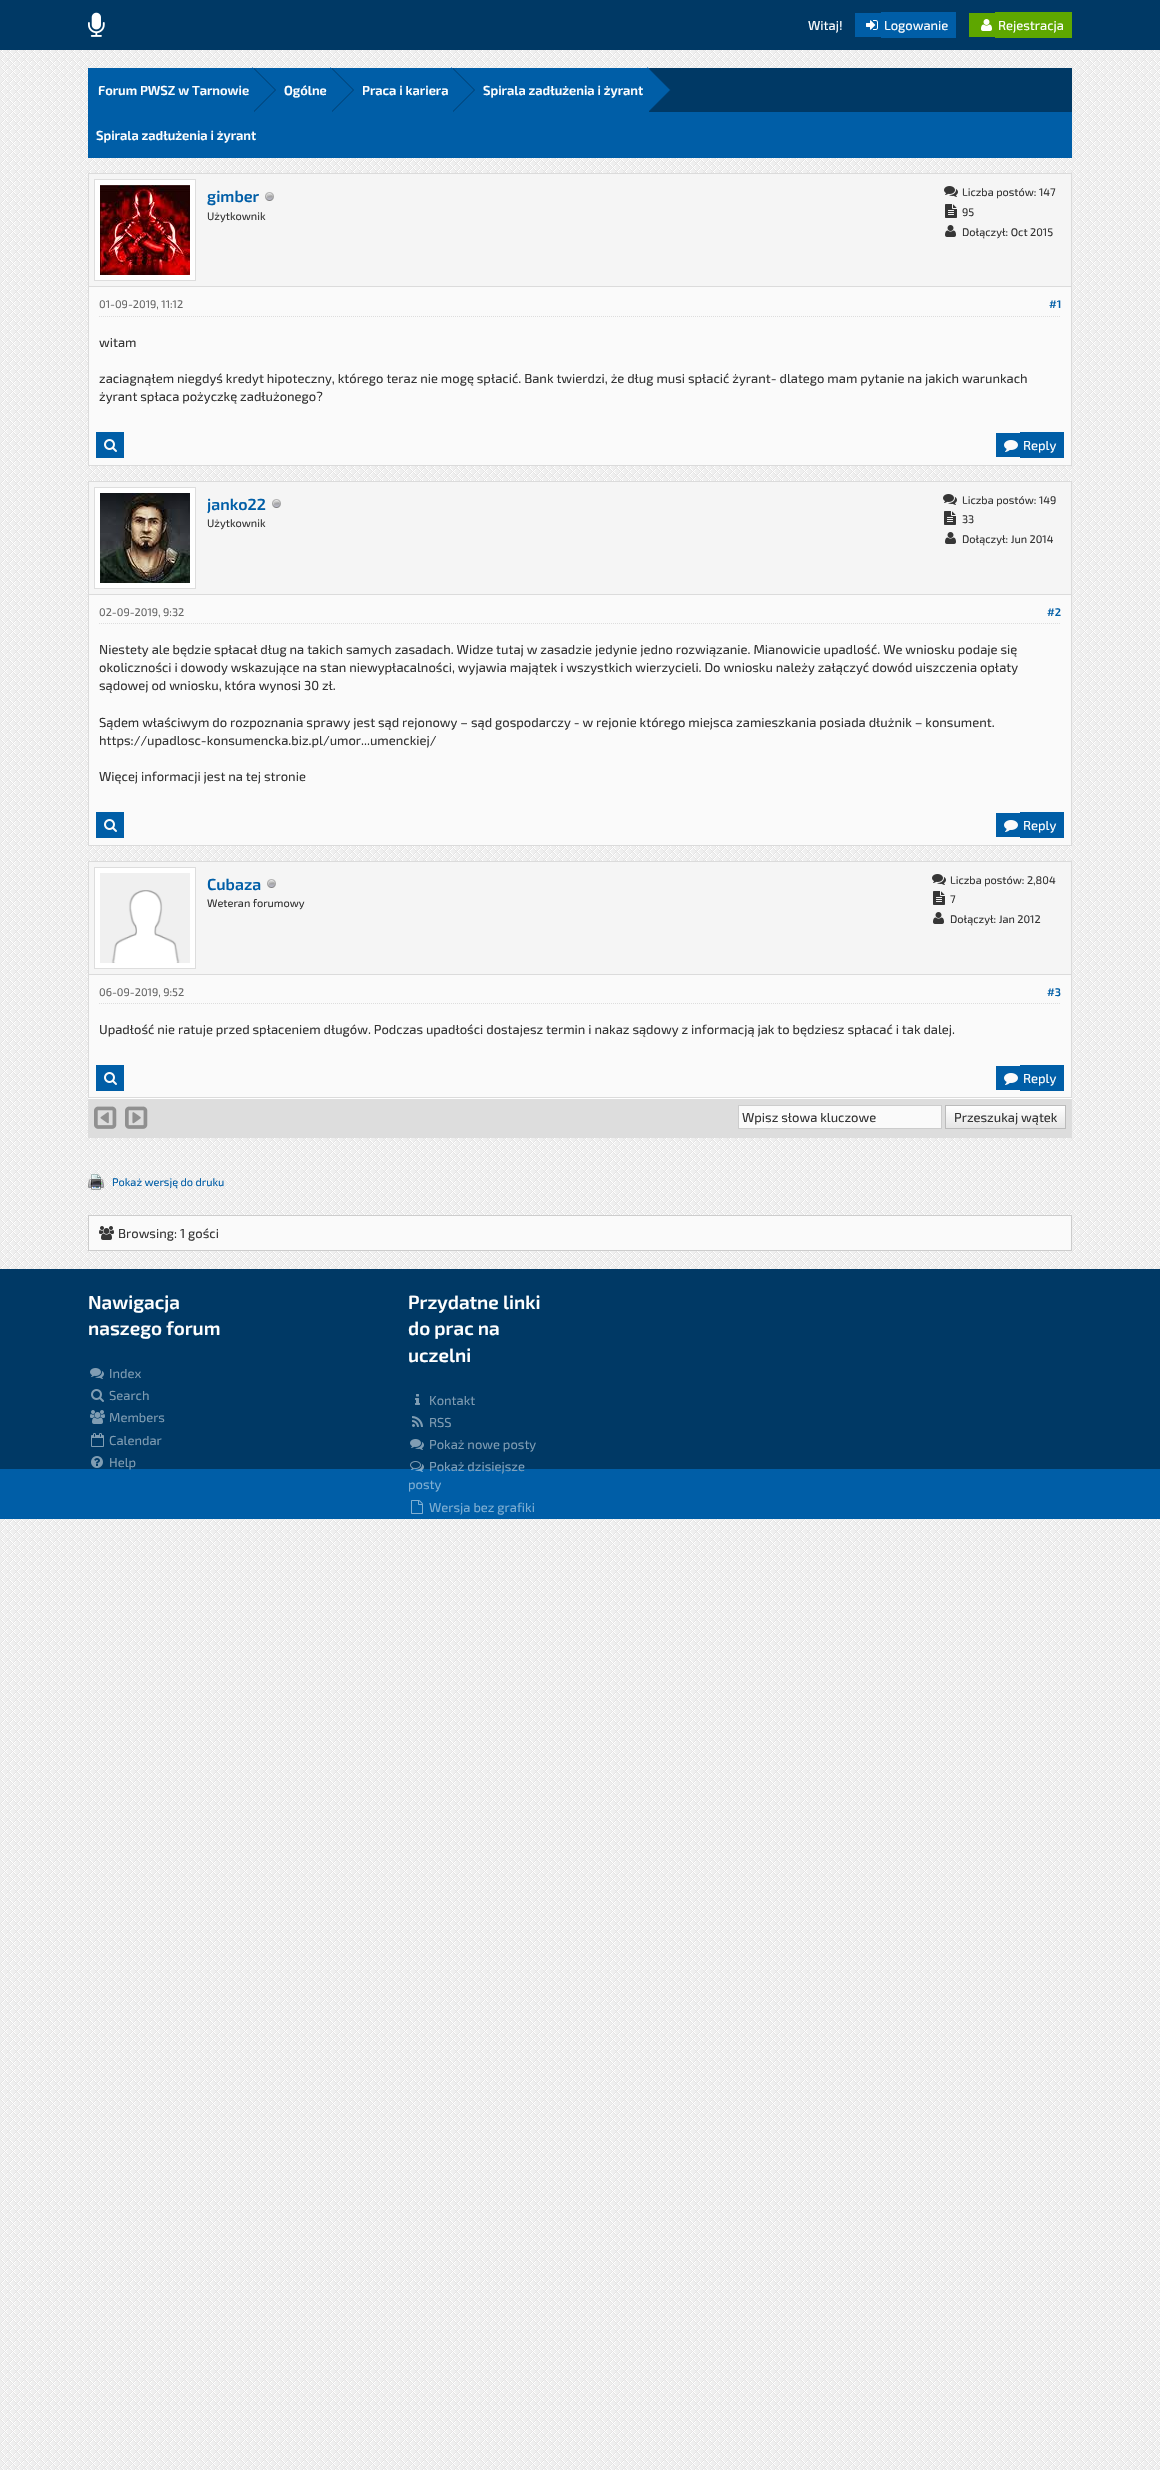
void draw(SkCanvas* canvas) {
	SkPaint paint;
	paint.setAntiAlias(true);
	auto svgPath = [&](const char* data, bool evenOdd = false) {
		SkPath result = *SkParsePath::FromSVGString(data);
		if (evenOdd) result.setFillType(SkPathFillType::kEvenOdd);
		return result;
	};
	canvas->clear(0xffefefef);
	canvas->drawImageRect(SkImages::DeferredFromEncodedData(SkData::MakeFromFileName("img1.png")), SkRect::MakeXYWH(0, 50, 1160, 2420), SkSamplingOptions());
	paint.setColor(0xff003965);
	canvas->drawRect(SkRect::MakeXYWH(0, 0, 1160, 50), paint);
	canvas->drawImageRect(SkImages::DeferredFromEncodedData(SkData::MakeFromFileName("img2.png")), SkRect::MakeXYWH(88, 12, 17, 25), SkSamplingOptions());
	SkFont f1(fontMgr->matchFamilyStyle("Exo 2", SkFontStyle::Normal()), 13);
	f1.setSubpixel(true);
	paint.setColor(0xffffffff);
	canvas->drawString("Witaj!", 808, 30, f1, paint);
	paint.setColor(0xff005ea7);
	canvas->drawRect(SkRect::MakeXYWH(855, 13, 26, 24), paint);
	canvas->drawRect(SkRect::MakeXYWH(881, 12, 75, 26), paint);
	canvas->drawImageRect(SkImages::DeferredFromEncodedData(SkData::MakeFromFileName("img3.png")), SkRect::MakeXYWH(866, 20, 12, 10), SkSamplingOptions());
	paint.setColor(0xffffffff);
	canvas->drawString("Logowanie", 884, 30, f1, paint);
	paint.setColor(0xff5ea700);
	canvas->drawRect(SkRect::MakeXYWH(969, 13, 26, 24), paint);
	canvas->drawRect(SkRect::MakeXYWH(995, 12, 77, 26), paint);
	canvas->drawImageRect(SkImages::DeferredFromEncodedData(SkData::MakeFromFileName("img4.png")), SkRect::MakeXYWH(981, 19, 11, 12), SkSamplingOptions());
	paint.setColor(0xffffffff);
	canvas->drawString("Rejestracja", 998, 30, f1, paint);
	paint.setColor(0xff003965);
	canvas->drawRect(SkRect::MakeXYWH(649, 68, 423, 44), paint);
	paint.setColor(0xff005ea7);
	canvas->drawRect(SkRect::MakeXYWH(88, 68, 561, 44), paint);
	SkFont f2(fontMgr->matchFamilyStyle("Exo 2", SkFontStyle(600, SkFontStyle::kNormal_Width, SkFontStyle::kUpright_Slant)), 13);
	f2.setSubpixel(true);
	paint.setColor(0xffffffff);
	canvas->drawString("Forum PWSZ w Tarnowie", 98, 95, f2, paint);
	paint.setColor(0xff003c6d);
	canvas->drawPath(svgPath("M254 112V68L276 90Z"), paint);
	paint.setColor(0xff005ea7);
	canvas->drawPath(svgPath("M252 113V67L275 90Z"), paint);
	paint.setColor(0xffffffff);
	canvas->drawString("Ogólne", 284, 95, f2, paint);
	paint.setColor(0xff003c6d);
	canvas->drawPath(svgPath("M332 112V68L354 90Z"), paint);
	paint.setColor(0xff005ea7);
	canvas->drawPath(svgPath("M330 113V67L353 90Z"), paint);
	paint.setColor(0xffffffff);
	canvas->drawString("Praca i kariera", 362, 95, f2, paint);
	paint.setColor(0xff003c6d);
	canvas->drawPath(svgPath("M453 112V68L475 90Z"), paint);
	paint.setColor(0xff005ea7);
	canvas->drawPath(svgPath("M451 113V67L474 90Z"), paint);
	paint.setColor(0xffffffff);
	canvas->drawString("Spirala zadłużenia i żyrant", 483, 95, f2, paint);
	paint.setColor(0xff003c6d);
	canvas->drawPath(svgPath("M649 112V68L671 90Z"), paint);
	paint.setColor(0xff005ea7);
	canvas->drawPath(svgPath("M647 113V67L670 90Z"), paint);
	canvas->drawRect(SkRect::MakeXYWH(88, 112, 984, 46), paint);
	paint.setColor(0xffffffff);
	canvas->drawString("Spirala zadłużenia i żyrant", 96, 140, f2, paint);
	paint.setColor(0xfffafafa);
	canvas->drawRect(SkRect::MakeXYWH(89, 287, 982, 178), paint);
	paint.setStroke(true);
	paint.setStrokeWidth(1);
	paint.setColor(0xffdbdbdb);
	canvas->drawRect(SkRect::MakeXYWH(88.5, 173.5, 983, 292), paint);
	paint.setStroke(false);
	paint.setColor(0xfff5f5f5);
	canvas->drawRect(SkRect::MakeXYWH(89, 174, 982, 112), paint);
	paint.setColor(0xffdbdbdb);
	canvas->drawRect(SkRect::MakeXYWH(89, 286, 982, 1), paint);
	paint.setColor(0xffffffff);
	canvas->drawRect(SkRect::MakeXYWH(94.5, 179.5, 101, 101), paint);
	paint.setStroke(true);
	paint.setColor(0xffdddddd);
	canvas->drawRect(SkRect::MakeXYWH(94.5, 179.5, 101, 101), paint);
	canvas->drawImageRect(SkImages::DeferredFromEncodedData(SkData::MakeFromFileName("img5.png")), SkRect::MakeXYWH(100, 185, 90, 90), SkSamplingOptions());
	SkFont f3(fontMgr->matchFamilyStyle("Exo 2", SkFontStyle(600, SkFontStyle::kNormal_Width, SkFontStyle::kUpright_Slant)), 16);
	f3.setSubpixel(true);
	paint.setStroke(false);
	paint.setColor(0xff005ea7);
	canvas->drawString("gimber", 207, 202, f3, paint);
	canvas->drawImageRect(SkImages::DeferredFromEncodedData(SkData::MakeFromFileName("img6.png")), SkRect::MakeXYWH(265, 192, 9, 9), SkSamplingOptions());
	SkFont f4(fontMgr->matchFamilyStyle("Exo 2", SkFontStyle::Normal()), 11);
	f4.setSubpixel(true);
	paint.setColor(0xff333333);
	canvas->drawString("Użytkownik", 207, 220, f4, paint);
	canvas->drawImageRect(SkImages::DeferredFromEncodedData(SkData::MakeFromFileName("img7.png")), SkRect::MakeXYWH(944, 186, 14, 11), SkSamplingOptions());
	canvas->drawString("Liczba postów: 147", 962, 196, f4, paint);
	canvas->drawImageRect(SkImages::DeferredFromEncodedData(SkData::MakeFromFileName("img8.png")), SkRect::MakeXYWH(945, 204, 12, 14), SkSamplingOptions());
	canvas->drawString("95", 962, 216, f4, paint);
	canvas->drawImageRect(SkImages::DeferredFromEncodedData(SkData::MakeFromFileName("img9.png")), SkRect::MakeXYWH(945, 225, 11, 12), SkSamplingOptions());
	canvas->drawString("Dołączył: Oct 2015", 962, 236, f4, paint);
	paint.setStroke(true);
	paint.setColor(0xffdddddd);
	paint.setPathEffect(SkDashPathEffect::Make({{1, 1}}, 0));
	canvas->drawPath(svgPath("M99 316.5H1061"), paint);
	paint.setPathEffect(nullptr);
	paint.setStroke(false);
	paint.setColor(0xff666666);
	canvas->drawString("01-09-2019, 11:12", 99, 308, f4, paint);
	SkFont f5(fontMgr->matchFamilyStyle("Exo 2", SkFontStyle(600, SkFontStyle::kNormal_Width, SkFontStyle::kUpright_Slant)), 11);
	f5.setSubpixel(true);
	paint.setColor(0xff005ea7);
	canvas->drawString("#1", 1049, 308, f5, paint);
	paint.setColor(0xff333333);
	canvas->drawString("witam", 99, 347, f1, paint);
	canvas->drawString("zaciagnąłem niegdyś kredyt hipoteczny, którego teraz nie mogę spłacić. Bank twierdzi, że dług musi spłacić żyrant- dlatego mam pytanie na jakich warunkach", 99, 383, f1, paint);
	canvas->drawString("żyrant spłaca pożyczkę zadłużonego?", 99, 401, f1, paint);
	paint.setColor(0xff005ea7);
	canvas->drawRect(SkRect::MakeXYWH(96, 432, 28, 26), paint);
	canvas->drawImageRect(SkImages::DeferredFromEncodedData(SkData::MakeFromFileName("img10.png")), SkRect::MakeXYWH(104, 439, 13, 13), SkSamplingOptions());
	canvas->drawRect(SkRect::MakeXYWH(996, 433, 24, 24), paint);
	canvas->drawRect(SkRect::MakeXYWH(1020, 432, 44, 26), paint);
	canvas->drawImageRect(SkImages::DeferredFromEncodedData(SkData::MakeFromFileName("img11.png")), SkRect::MakeXYWH(1004, 440, 14, 12), SkSamplingOptions());
	paint.setColor(0xffffffff);
	canvas->drawString("Reply", 1023, 450, f1, paint);
	paint.setColor(0xfffafafa);
	canvas->drawRect(SkRect::MakeXYWH(89, 595, 982, 250), paint);
	paint.setStroke(true);
	paint.setColor(0xffdbdbdb);
	canvas->drawRect(SkRect::MakeXYWH(88.5, 481.5, 983, 364), paint);
	paint.setStroke(false);
	paint.setColor(0xfff5f5f5);
	canvas->drawRect(SkRect::MakeXYWH(89, 482, 982, 112), paint);
	paint.setColor(0xffdbdbdb);
	canvas->drawRect(SkRect::MakeXYWH(89, 594, 982, 1), paint);
	paint.setColor(0xffffffff);
	canvas->drawRect(SkRect::MakeXYWH(94.5, 487.5, 101, 101), paint);
	paint.setStroke(true);
	paint.setColor(0xffdddddd);
	canvas->drawRect(SkRect::MakeXYWH(94.5, 487.5, 101, 101), paint);
	canvas->drawImageRect(SkImages::DeferredFromEncodedData(SkData::MakeFromFileName("img12.png")), SkRect::MakeXYWH(100, 493, 90, 90), SkSamplingOptions());
	paint.setStroke(false);
	paint.setColor(0xff005ea7);
	canvas->drawString("janko22", 207, 510, f3, paint);
	canvas->drawImageRect(SkImages::DeferredFromEncodedData(SkData::MakeFromFileName("img6.png")), SkRect::MakeXYWH(272, 499, 9, 9), SkSamplingOptions());
	paint.setColor(0xff333333);
	canvas->drawString("Użytkownik", 207, 527, f4, paint);
	canvas->drawImageRect(SkImages::DeferredFromEncodedData(SkData::MakeFromFileName("img7.png")), SkRect::MakeXYWH(943, 494, 14, 11), SkSamplingOptions());
	canvas->drawString("Liczba postów: 149", 962, 504, f4, paint);
	canvas->drawImageRect(SkImages::DeferredFromEncodedData(SkData::MakeFromFileName("img8.png")), SkRect::MakeXYWH(944, 511, 12, 14), SkSamplingOptions());
	canvas->drawString("33", 962, 523, f4, paint);
	canvas->drawImageRect(SkImages::DeferredFromEncodedData(SkData::MakeFromFileName("img9.png")), SkRect::MakeXYWH(945, 532, 11, 12), SkSamplingOptions());
	canvas->drawString("Dołączył: Jun 2014", 962, 543, f4, paint);
	paint.setStroke(true);
	paint.setColor(0xffdddddd);
	paint.setPathEffect(SkDashPathEffect::Make({{1, 1}}, 0));
	canvas->drawPath(svgPath("M99 623.5H1061"), paint);
	paint.setPathEffect(nullptr);
	paint.setStroke(false);
	paint.setColor(0xff666666);
	canvas->drawString("02-09-2019, 9:32", 99, 616, f4, paint);
	paint.setColor(0xff005ea7);
	canvas->drawString("#2", 1047, 616, f5, paint);
	paint.setColor(0xff333333);
	canvas->drawString("Niestety ale będzie spłacał dług na takich samych zasadach. Widze tutaj w zasadzie jedynie jedno rozwiązanie. Mianowicie upadlość. We wniosku podaje się", 99, 654, f1, paint);
	canvas->drawString("okoliczności i dowody wskazujące na stan niewypłacalności, wyjawia majątek i wszystkich wierzycieli. Do wniosku należy załączyć dowód uiszczenia opłaty", 99, 672, f1, paint);
	canvas->drawString("sądowej od wniosku, która wynosi 30 zł.", 99, 690, f1, paint);
	canvas->drawString("Sądem właściwym do rozpoznania sprawy jest sąd rejonowy – sąd gospodarczy - w rejonie którego miejsca zamieszkania posiada dłużnik – konsument.", 99, 727, f1, paint);
	canvas->drawString("https://upadlosc-konsumencka.biz.pl/umor...umenckiej/", 99, 745, f1, paint);
	canvas->drawString("Więcej informacji jest na tej stronie", 99, 781, f1, paint);
	paint.setColor(0xff005ea7);
	canvas->drawRect(SkRect::MakeXYWH(96, 812, 28, 26), paint);
	canvas->drawImageRect(SkImages::DeferredFromEncodedData(SkData::MakeFromFileName("img10.png")), SkRect::MakeXYWH(104, 819, 13, 13), SkSamplingOptions());
	canvas->drawRect(SkRect::MakeXYWH(996, 813, 24, 24), paint);
	canvas->drawRect(SkRect::MakeXYWH(1020, 812, 44, 26), paint);
	canvas->drawImageRect(SkImages::DeferredFromEncodedData(SkData::MakeFromFileName("img11.png")), SkRect::MakeXYWH(1004, 820, 14, 12), SkSamplingOptions());
	paint.setColor(0xffffffff);
	canvas->drawString("Reply", 1023, 830, f1, paint);
	paint.setColor(0xfffafafa);
	canvas->drawRect(SkRect::MakeXYWH(89, 975, 982, 122), paint);
	paint.setStroke(true);
	paint.setColor(0xffdbdbdb);
	canvas->drawRect(SkRect::MakeXYWH(88.5, 861.5, 983, 236), paint);
	paint.setStroke(false);
	paint.setColor(0xfff5f5f5);
	canvas->drawRect(SkRect::MakeXYWH(89, 862, 982, 112), paint);
	paint.setColor(0xffdbdbdb);
	canvas->drawRect(SkRect::MakeXYWH(89, 974, 982, 1), paint);
	paint.setColor(0xffffffff);
	canvas->drawRect(SkRect::MakeXYWH(94.5, 867.5, 101, 101), paint);
	paint.setStroke(true);
	paint.setColor(0xffdddddd);
	canvas->drawRect(SkRect::MakeXYWH(94.5, 867.5, 101, 101), paint);
	canvas->drawImageRect(SkImages::DeferredFromEncodedData(SkData::MakeFromFileName("img13.png")), SkRect::MakeXYWH(100, 873, 90, 90), SkSamplingOptions());
	paint.setStroke(false);
	paint.setColor(0xff005ea7);
	canvas->drawString("Cubaza", 207, 890, f3, paint);
	canvas->drawImageRect(SkImages::DeferredFromEncodedData(SkData::MakeFromFileName("img6.png")), SkRect::MakeXYWH(267, 879, 9, 9), SkSamplingOptions());
	paint.setColor(0xff333333);
	canvas->drawString("Weteran forumowy", 207, 907, f4, paint);
	canvas->drawImageRect(SkImages::DeferredFromEncodedData(SkData::MakeFromFileName("img7.png")), SkRect::MakeXYWH(932, 874, 14, 11), SkSamplingOptions());
	canvas->drawString("Liczba postów: 2,804", 950, 884, f4, paint);
	canvas->drawImageRect(SkImages::DeferredFromEncodedData(SkData::MakeFromFileName("img8.png")), SkRect::MakeXYWH(933, 891, 12, 14), SkSamplingOptions());
	canvas->drawString("7", 950, 903, f4, paint);
	canvas->drawImageRect(SkImages::DeferredFromEncodedData(SkData::MakeFromFileName("img9.png")), SkRect::MakeXYWH(933, 912, 11, 12), SkSamplingOptions());
	canvas->drawString("Dołączył: Jan 2012", 950, 923, f4, paint);
	paint.setStroke(true);
	paint.setColor(0xffdddddd);
	paint.setPathEffect(SkDashPathEffect::Make({{1, 1}}, 0));
	canvas->drawPath(svgPath("M99 1003.5H1061"), paint);
	paint.setPathEffect(nullptr);
	paint.setStroke(false);
	paint.setColor(0xff666666);
	canvas->drawString("06-09-2019, 9:52", 99, 996, f4, paint);
	paint.setColor(0xff005ea7);
	canvas->drawString("#3", 1047, 996, f5, paint);
	paint.setColor(0xff333333);
	canvas->drawString("Upadłość nie ratuje przed spłaceniem długów. Podczas upadłości dostajesz termin i nakaz sądowy z informacją jak to będziesz spłacać i tak dalej.", 99, 1034, f1, paint);
	paint.setColor(0xff005ea7);
	canvas->drawRect(SkRect::MakeXYWH(96, 1065, 28, 26), paint);
	canvas->drawImageRect(SkImages::DeferredFromEncodedData(SkData::MakeFromFileName("img10.png")), SkRect::MakeXYWH(104, 1072, 13, 13), SkSamplingOptions());
	canvas->drawRect(SkRect::MakeXYWH(996, 1066, 24, 24), paint);
	canvas->drawRect(SkRect::MakeXYWH(1020, 1065, 44, 26), paint);
	canvas->drawImageRect(SkImages::DeferredFromEncodedData(SkData::MakeFromFileName("img11.png")), SkRect::MakeXYWH(1004, 1073, 14, 12), SkSamplingOptions());
	paint.setColor(0xffffffff);
	canvas->drawString("Reply", 1023, 1083, f1, paint);
	paint.setColor(0xffdddddd);
	canvas->drawRect(SkRect::MakeXYWH(88, 1099, 984, 39), paint);
	paint.setColor(0xffffffff);
	canvas->drawRect(SkRect::MakeXYWH(88, 1098, 984, 1), paint);
	canvas->drawImageRect(SkImages::DeferredFromEncodedData(SkData::MakeFromFileName("img14.png")), SkRect::MakeXYWH(94, 1106, 23, 23), SkSamplingOptions());
	canvas->drawImageRect(SkImages::DeferredFromEncodedData(SkData::MakeFromFileName("img15.png")), SkRect::MakeXYWH(125, 1106, 23, 23), SkSamplingOptions());
	paint.setColor(0xfffafafa);
	canvas->drawRect(SkRect::MakeXYWH(738.5, 1105.5, 203, 23), paint);
	paint.setStroke(true);
	paint.setColor(0xffcccccc);
	canvas->drawRect(SkRect::MakeXYWH(738.5, 1105.5, 203, 23), paint);
	paint.setStroke(false);
	paint.setColor(0xff333333);
	canvas->drawString("Wpisz słowa kluczowe", 742, 1122, f1, paint);
	{
		const SkColor colors[] = {0xffffffff, 0xffe5e5e5};
		const float stops[] = {0, 1};
		const SkPoint ends[] = {{1006, 1106}, {1006, 1128}};
		paint.setShader(SkGradientShader::MakeLinear(ends, colors, stops, 2, SkTileMode::kClamp));
		paint.setAlpha(255);
	}
	canvas->drawRect(SkRect::MakeXYWH(946, 1106, 119, 22), paint);
	paint.setStroke(true);
	paint.setShader(nullptr);
	paint.setColor(0xffbbbbbb);
	canvas->drawRect(SkRect::MakeXYWH(945.5, 1105.5, 120, 23), paint);
	paint.setStroke(false);
	paint.setColor(0xff333333);
	canvas->drawString("Przeszukaj wątek", 954, 1122, f1, paint);
	canvas->drawImageRect(SkImages::DeferredFromEncodedData(SkData::MakeFromFileName("img16.png")), SkRect::MakeXYWH(88, 1174, 16, 16), SkSamplingOptions());
	paint.setColor(0xff005ea7);
	canvas->drawString("Pokaż wersję do druku", 112, 1186, f4, paint);
	paint.setColor(0xfffafafa);
	canvas->drawRect(SkRect::MakeXYWH(88.5, 1215.5, 983, 35), paint);
	paint.setStroke(true);
	paint.setColor(0xffcccccc);
	canvas->drawRect(SkRect::MakeXYWH(88.5, 1215.5, 983, 35), paint);
	canvas->drawImageRect(SkImages::DeferredFromEncodedData(SkData::MakeFromFileName("img17.png")), SkRect::MakeXYWH(99, 1226, 15, 14), SkSamplingOptions());
	paint.setStroke(false);
	paint.setColor(0xff333333);
	canvas->drawString("Browsing: 1 gości", 118, 1238, f1, paint);
	paint.setColor(0xff003965);
	canvas->drawRect(SkRect::MakeXYWH(0, 1269, 1160, 200), paint);
	SkFont f6(fontMgr->matchFamilyStyle("Exo 2", SkFontStyle(600, SkFontStyle::kNormal_Width, SkFontStyle::kUpright_Slant)), 19);
	f6.setSubpixel(true);
	paint.setColor(0xffffffff);
	canvas->drawString("Nawigacja", 88, 1309, f6, paint);
	canvas->drawString("naszego forum", 88, 1335, f6, paint);
	canvas->drawImageRect(SkImages::DeferredFromEncodedData(SkData::MakeFromFileName("img18.png")), SkRect::MakeXYWH(90, 1368, 14, 11), SkSamplingOptions());
	paint.setColor(0xff809cb2);
	canvas->drawString("Index", 109, 1378, f1, paint);
	canvas->drawImageRect(SkImages::DeferredFromEncodedData(SkData::MakeFromFileName("img19.png")), SkRect::MakeXYWH(91, 1389, 13, 13), SkSamplingOptions());
	canvas->drawString("Search", 109, 1400, f1, paint);
	canvas->drawImageRect(SkImages::DeferredFromEncodedData(SkData::MakeFromFileName("img20.png")), SkRect::MakeXYWH(90, 1410, 15, 14), SkSamplingOptions());
	canvas->drawString("Members", 109, 1422, f1, paint);
	canvas->drawImageRect(SkImages::DeferredFromEncodedData(SkData::MakeFromFileName("img21.png")), SkRect::MakeXYWH(91, 1433, 13, 14), SkSamplingOptions());
	canvas->drawString("Calendar", 109, 1445, f1, paint);
	canvas->drawImageRect(SkImages::DeferredFromEncodedData(SkData::MakeFromFileName("img22.png")), SkRect::MakeXYWH(91, 1456, 12, 12), SkSamplingOptions());
	paint.setColor(0xff005ea7);
	canvas->drawRect(SkRect::MakeXYWH(0, 1469, 1160, 50), paint);
	paint.setColor(0xff809cb2);
	canvas->drawString("Help", 109, 1467, f1, paint);
	paint.setColor(0xffffffff);
	canvas->drawString("Przydatne linki", 408, 1309, f6, paint);
	canvas->drawString("do prac na", 408, 1335, f6, paint);
	canvas->drawString("uczelni", 408, 1362, f6, paint);
	canvas->drawImageRect(SkImages::DeferredFromEncodedData(SkData::MakeFromFileName("img23.png")), SkRect::MakeXYWH(415, 1394, 5, 11), SkSamplingOptions());
	paint.setColor(0xff809cb2);
	canvas->drawString("Kontakt", 429, 1405, f1, paint);
	canvas->drawImageRect(SkImages::DeferredFromEncodedData(SkData::MakeFromFileName("img24.png")), SkRect::MakeXYWH(412, 1416, 11, 11), SkSamplingOptions());
	canvas->drawString("RSS", 429, 1427, f1, paint);
	canvas->drawImageRect(SkImages::DeferredFromEncodedData(SkData::MakeFromFileName("img18.png")), SkRect::MakeXYWH(410, 1439, 14, 11), SkSamplingOptions());
	canvas->drawString("Pokaż nowe posty", 429, 1449, f1, paint);
	canvas->drawImageRect(SkImages::DeferredFromEncodedData(SkData::MakeFromFileName("img25.png")), SkRect::MakeXYWH(410, 1461, 14, 11), SkSamplingOptions());
	paint.setColor(0xff80a1bc);
	canvas->drawString("Pokaż dzisiejsze", 429, 1471, f1, paint);
	paint.setColor(0xff80afd3);
	canvas->drawString("posty", 408, 1489, f1, paint);
	canvas->drawImageRect(SkImages::DeferredFromEncodedData(SkData::MakeFromFileName("img26.png")), SkRect::MakeXYWH(411, 1500, 12, 14), SkSamplingOptions());
	canvas->drawString("Wersja bez grafiki", 429, 1512, f1, paint);
}
